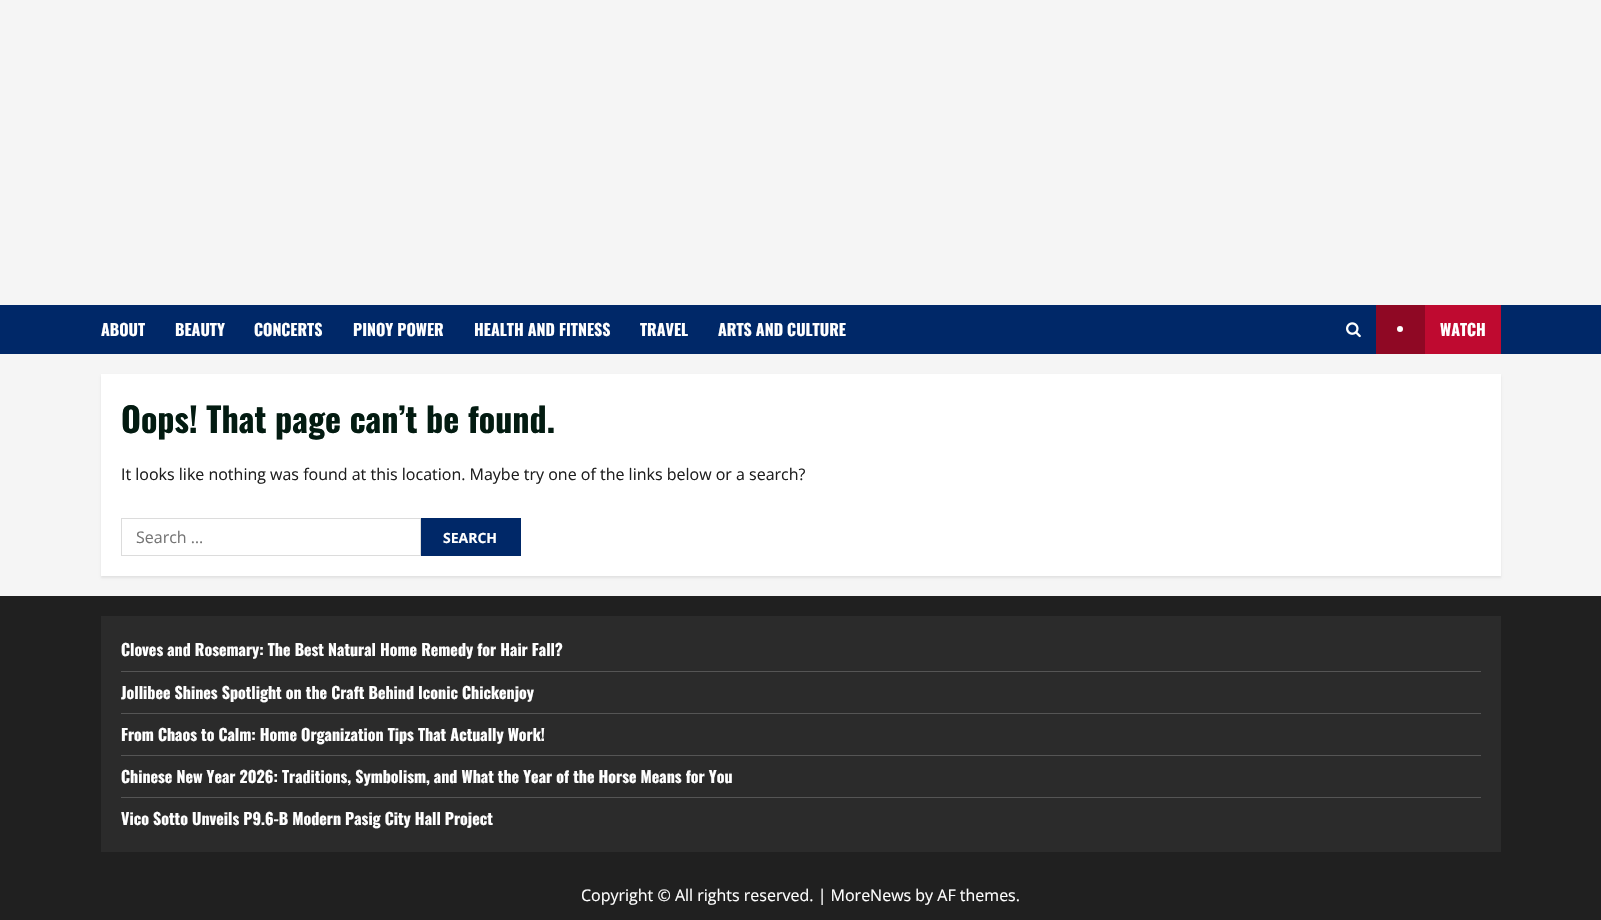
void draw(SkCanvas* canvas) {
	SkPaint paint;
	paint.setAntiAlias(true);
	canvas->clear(0xfff5f5f5);
	paint.setColor(0xff002868);
	canvas->drawRect(SkRect::MakeXYWH(0, 305, 1601, 49), paint);
	SkFont f1(fontMgr->matchFamilyStyle("Oswald", SkFontStyle::Bold()), 16);
	f1.setSubpixel(true);
	paint.setColor(0xffffffff);
	canvas->drawString("ABOUT", 101, 336, f1, paint);
	canvas->drawString("BEAUTY", 175, 336, f1, paint);
	canvas->drawString("CONCERTS", 254, 336, f1, paint);
	canvas->drawString("PINOY POWER", 353, 336, f1, paint);
	canvas->drawString("HEALTH AND FITNESS", 474, 336, f1, paint);
	canvas->drawString("TRAVEL", 640, 336, f1, paint);
	canvas->drawString("ARTS AND CULTURE", 718, 336, f1, paint);
	canvas->drawImageRect(SkImages::DeferredFromEncodedData(SkData::MakeFromFileName("img1.png")), SkRect::MakeXYWH(1346, 322, 15, 16), SkSamplingOptions());
	paint.setColor(0xffbf0a30);
	canvas->drawRect(SkRect::MakeXYWH(1425, 305, 76, 49), paint);
	paint.setColor(0xff8f0824);
	canvas->drawRect(SkRect::MakeXYWH(1376, 305, 49, 49), paint);
	paint.setColor(0xffffffff);
	canvas->drawCircle(1400, 329, 3, paint);
	canvas->drawString("WATCH", 1440, 336, f1, paint);
	paint.setColor(0x14000000);
	paint.setMaskFilter(SkMaskFilter::MakeBlur(kNormal_SkBlurStyle, 1));
	canvas->drawRect(SkRect::MakeXYWH(101, 376, 1400, 202), paint);
	paint.setMaskFilter(nullptr);
	paint.setColor(0xffffffff);
	canvas->drawRect(SkRect::MakeXYWH(101, 374, 1400, 202), paint);
	SkFont f2(fontMgr->matchFamilyStyle("Oswald", SkFontStyle::Bold()), 34);
	f2.setSubpixel(true);
	paint.setColor(0xff031b11);
	canvas->drawString("Oops! That page can’t be found.", 121, 433, f2, paint);
	SkFont f3(fontMgr->matchFamilyStyle("Open Sans", SkFontStyle::Normal()), 16);
	f3.setSubpixel(true);
	paint.setColor(0xff1f1f1f);
	canvas->drawString("It looks like nothing was found at this location. Maybe try one of the links below or a search?", 121, 480, f3, paint);
	paint.setStroke(true);
	paint.setStrokeWidth(1);
	paint.setColor(0xffdcdcdc);
	canvas->drawRect(SkRect::MakeXYWH(121.5, 518.5, 299, 37), paint);
	paint.setStroke(false);
	paint.setColor(0xff757575);
	canvas->drawString("Search …", 136, 543, f3, paint);
	paint.setColor(0xff002868);
	canvas->drawRect(SkRect::MakeXYWH(421, 518, 100, 38), paint);
	SkFont f4(fontMgr->matchFamilyStyle("Open Sans", SkFontStyle::Bold()), 14);
	f4.setSubpixel(true);
	paint.setColor(0xffffffff);
	canvas->drawString("SEARCH", 443, 543, f4, paint);
	paint.setColor(0xff202020);
	canvas->drawRect(SkRect::MakeXYWH(0, 596, 1601, 324), paint);
	paint.setColor(0xff2b2b2b);
	canvas->drawRect(SkRect::MakeXYWH(101, 616, 1400, 236), paint);
	paint.setColor(0xff555555);
	canvas->drawRect(SkRect::MakeXYWH(121, 671, 1360, 1), paint);
	paint.setColor(0xffffffff);
	canvas->drawString("Cloves and Rosemary: The Best Natural Home Remedy for Hair Fall?", 121, 656, f1, paint);
	paint.setColor(0xff555555);
	canvas->drawRect(SkRect::MakeXYWH(121, 713, 1360, 1), paint);
	paint.setColor(0xffffffff);
	canvas->drawString("Jollibee Shines Spotlight on the Craft Behind Iconic Chickenjoy", 121, 699, f1, paint);
	paint.setColor(0xff555555);
	canvas->drawRect(SkRect::MakeXYWH(121, 755, 1360, 1), paint);
	paint.setColor(0xffffffff);
	canvas->drawString("From Chaos to Calm: Home Organization Tips That Actually Work!", 121, 741, f1, paint);
	paint.setColor(0xff555555);
	canvas->drawRect(SkRect::MakeXYWH(121, 797, 1360, 1), paint);
	paint.setColor(0xffffffff);
	canvas->drawString("Chinese New Year 2026: Traditions, Symbolism, and What the Year of the Horse Means for You", 121, 783, f1, paint);
	canvas->drawString("Vico Sotto Unveils P9.6-B Modern Pasig City Hall Project", 121, 825, f1, paint);
	canvas->drawString("Copyright © All rights reserved. | MoreNews by AF themes.", 581, 901, f3, paint);
}
